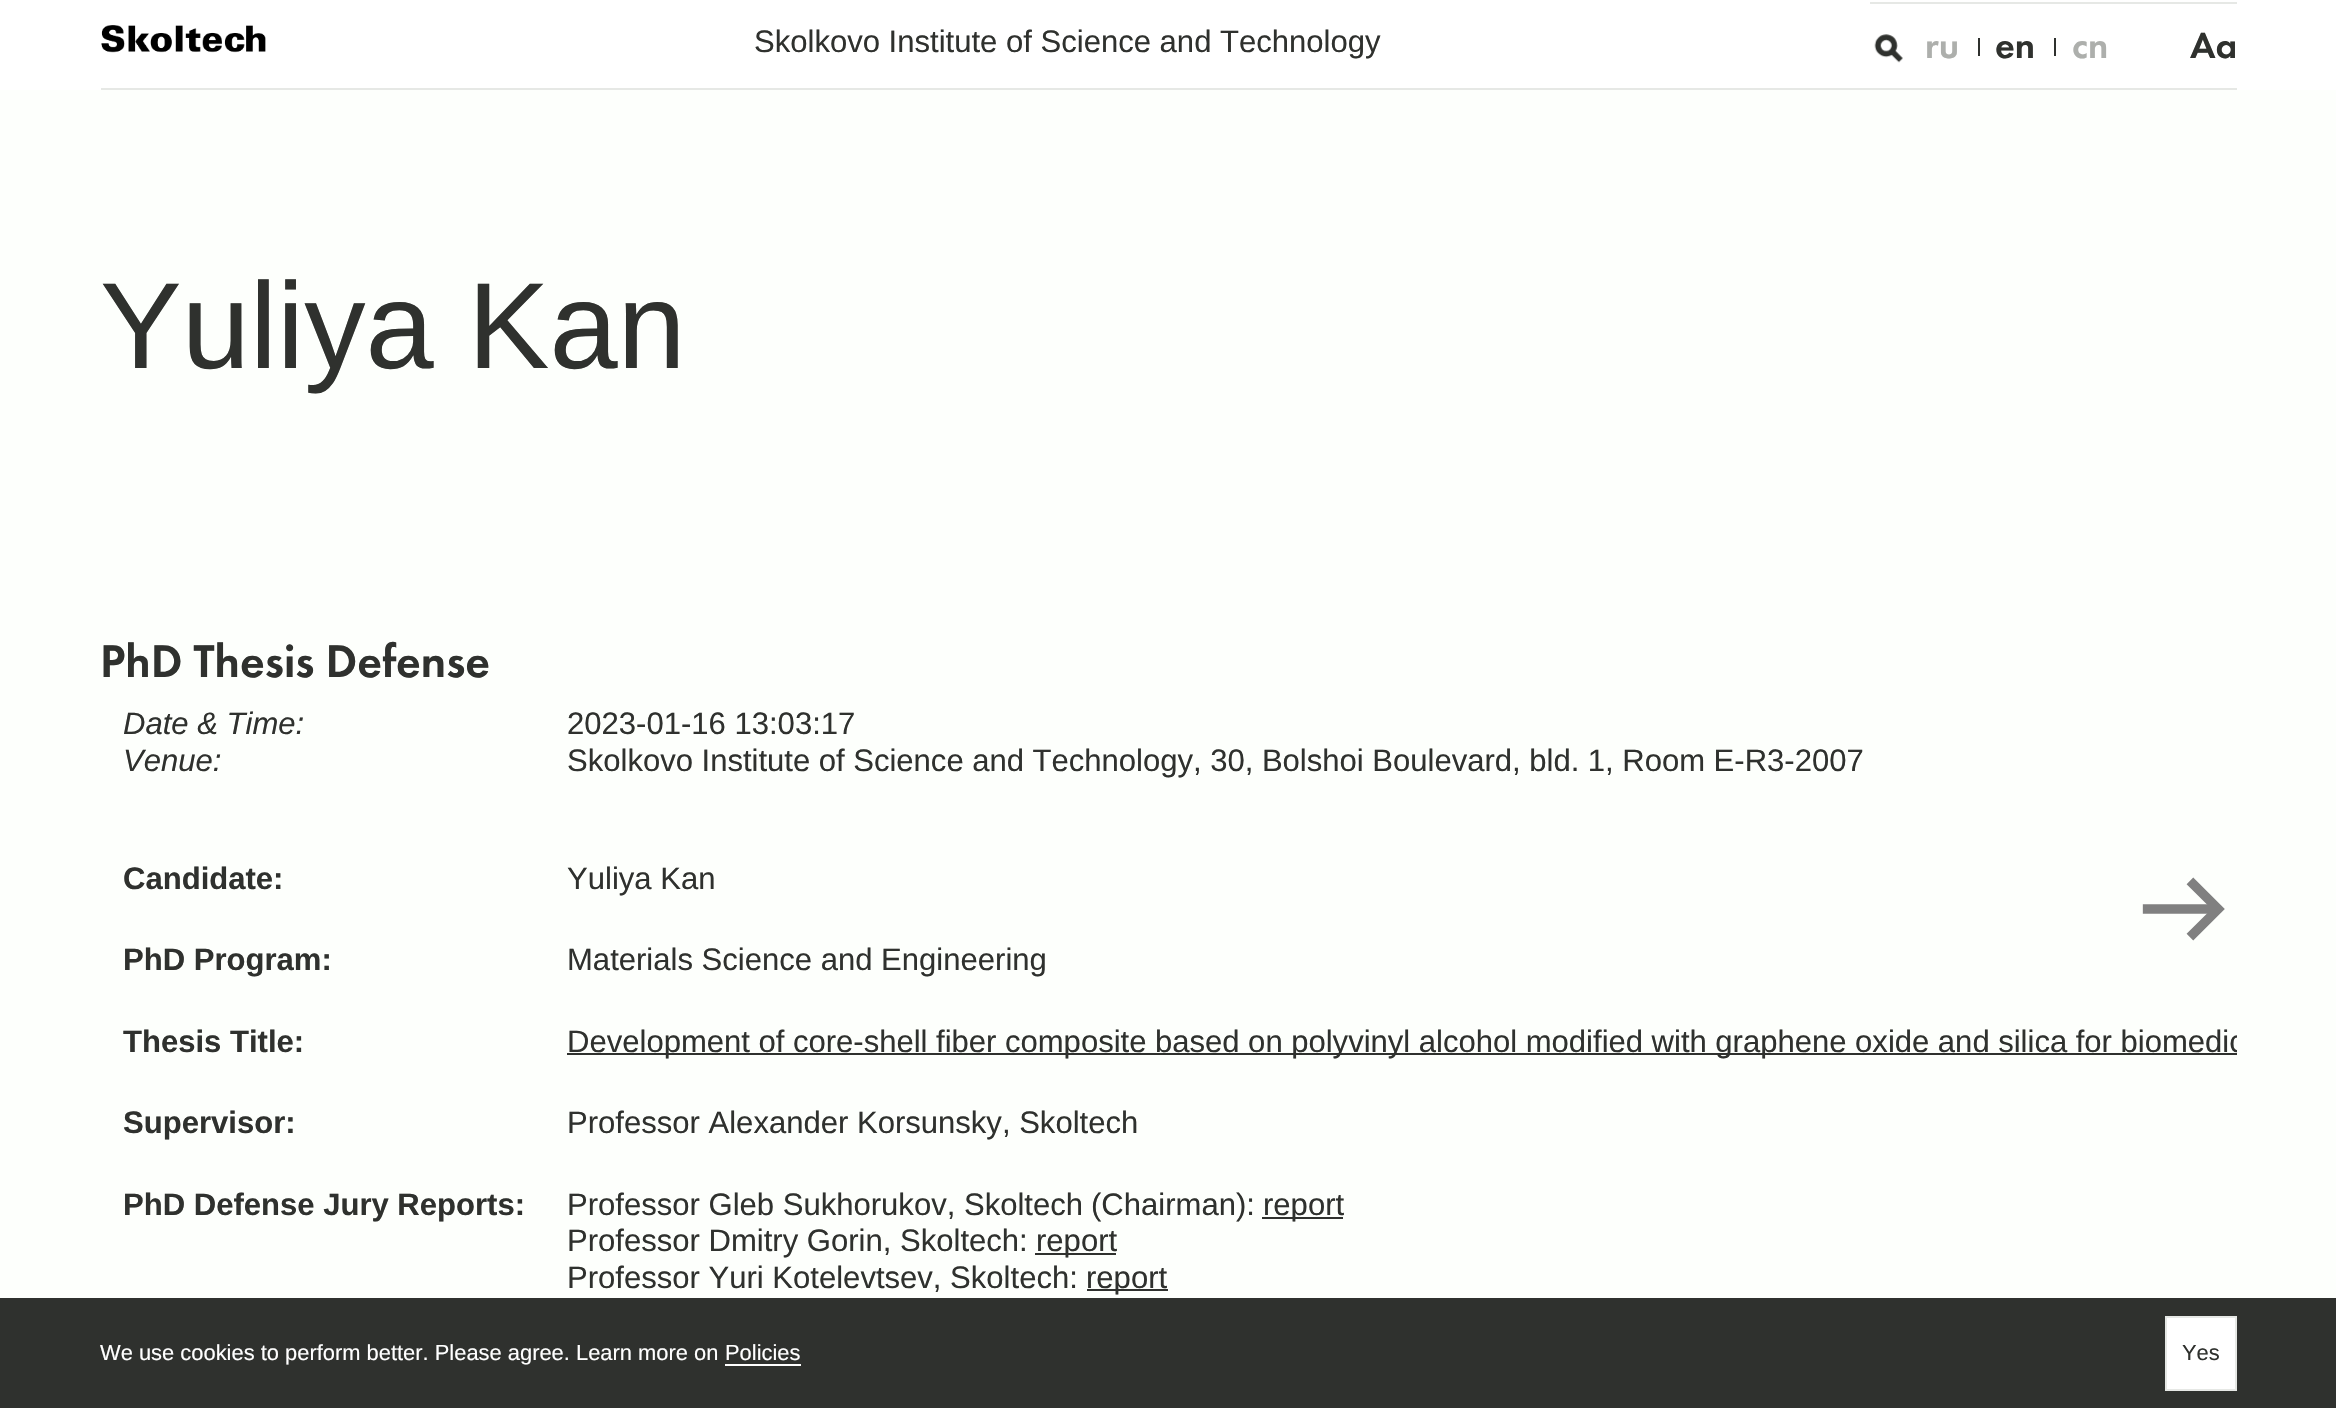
void draw(SkCanvas* canvas) {
	SkPaint paint;
	paint.setAntiAlias(true);
	auto spacedText = [&](const char* s, float x, float y, const SkFont& font, const SkPaint& ink, float letter, float word) {
		std::vector<SkGlyphID> glyphs(font.countText(s, strlen(s), SkTextEncoding::kUTF8));
		std::vector<float> xs(glyphs.size());
		font.textToGlyphs(s, strlen(s), SkTextEncoding::kUTF8, glyphs);
		font.getXPos(glyphs, xs, x);
		float extra = 0;
		for (size_t i = 0; i < glyphs.size(); i++) {
			xs[i] += extra;
			extra += letter + word * (glyphs[i] == font.unicharToGlyph(' '));
		}
		canvas->drawTextBlob(SkTextBlob::MakeFromPosHGlyphs(glyphs, xs, y, font), 0, 0, ink);
	};
	canvas->clear(0xfffdfffc);
	paint.setColor(0xffffffff);
	canvas->drawRect(SkRect::MakeXYWH(0, 0, 2336, 90), paint);
	paint.setColor(0xffe6e8e5);
	canvas->drawRect(SkRect::MakeXYWH(101, 88, 2136, 2), paint);
	canvas->drawImageRect(SkImages::DeferredFromEncodedData(SkData::MakeFromFileName("img1.png")), SkRect::MakeXYWH(101, 25, 165, 28), SkSamplingOptions());
	SkFont f1(fontMgr->matchFamilyStyle("Liberation Sans", SkFontStyle::Normal()), 31.05);
	f1.setSubpixel(true);
	paint.setColor(0xff2f312e);
	canvas->drawString("Skolkovo Institute of Science and Technology", 754, 52, f1, paint);
	paint.setColor(0xffe6e8e5);
	canvas->drawRect(SkRect::MakeXYWH(1870, 2, 367, 2), paint);
	canvas->drawImageRect(SkImages::DeferredFromEncodedData(SkData::MakeFromFileName("img2.png")), SkRect::MakeXYWH(1874, 34, 29, 29), SkSamplingOptions());
	SkFont f2(fontMgr->matchFamilyStyle("Futura PT", SkFontStyle(500, SkFontStyle::kNormal_Width, SkFontStyle::kUpright_Slant)), 38);
	f2.setSubpixel(true);
	paint.setColor(0xffadafac);
	canvas->drawString("ru", 1925, 58, f2, paint);
	paint.setColor(0xff2f312e);
	canvas->drawRect(SkRect::MakeXYWH(1978, 38, 2, 18), paint);
	canvas->drawString("en", 1995, 58, f2, paint);
	canvas->drawRect(SkRect::MakeXYWH(2054, 38, 2, 18), paint);
	paint.setColor(0xffadafac);
	canvas->drawString("cn", 2072, 58, f2, paint);
	paint.setColor(0xff2f312e);
	canvas->drawString("Aa", 2190, 58, f2, paint);
	SkFont f3(fontMgr->matchFamilyStyle("Liberation Sans", SkFontStyle::Normal()), 122.5);
	f3.setSubpixel(true);
	canvas->drawString("Yuliya Kan", 100, 368, f3, paint);
	SkFont f4(fontMgr->matchFamilyStyle("Futura PT", SkFontStyle(500, SkFontStyle::kNormal_Width, SkFontStyle::kUpright_Slant)), 47.5);
	f4.setSubpixel(true);
	canvas->drawString("PhD Thesis Defense", 100, 677, f4, paint);
	SkFont f5(fontMgr->matchFamilyStyle("Liberation Sans", SkFontStyle::Italic()), 31.05);
	f5.setSubpixel(true);
	canvas->drawString("Date & Time:", 123, 734, f5, paint);
	canvas->drawString("Venue:", 123, 771, f5, paint);
	canvas->drawString("2023-01-16 13:03:17", 567, 734, f1, paint);
	spacedText("Skolkovo Institute of Science and Technology, 30, Bolshoi Boulevard, bld. 1, Room E-R3-2007", 567, 771, f1, paint, 0, -0.1);
	SkFont f6(fontMgr->matchFamilyStyle("Liberation Sans", SkFontStyle::Bold()), 31.05);
	f6.setSubpixel(true);
	canvas->drawString("Candidate:", 123, 889, f6, paint);
	canvas->drawString("Yuliya Kan", 567, 889, f1, paint);
	canvas->drawString("PhD Program:", 123, 970, f6, paint);
	canvas->drawString("Materials Science and Engineering", 567, 970, f1, paint);
	canvas->drawString("Thesis Title:", 123, 1052, f6, paint);
	canvas->drawRect(SkRect::MakeXYWH(567, 1053, 1670, 2), paint);
	canvas->save();
	canvas->clipRect(SkRect::MakeXYWH(101, 684, 2136, 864));
	spacedText("Development of core-shell fiber composite based on polyvinyl alcohol modified with graphene oxide and silica for biomedic", 567, 1052, f1, paint, 0, -0.1);
	canvas->restore();
	canvas->drawString("Supervisor:", 123, 1133, f6, paint);
	canvas->drawString("Professor Alexander Korsunsky, Skoltech", 567, 1133, f1, paint);
	canvas->drawString("PhD Defense Jury Reports:", 123, 1215, f6, paint);
	canvas->drawString("Professor Gleb Sukhorukov, Skoltech", 567, 1215, f1, paint);
	canvas->drawString("(Chairman):", 1091, 1215, f1, paint);
	canvas->drawRect(SkRect::MakeXYWH(1262, 1217, 81, 2), paint);
	canvas->drawString("report", 1263, 1215, f1, paint);
	canvas->drawString("Professor Dmitry Gorin, Skoltech:", 567, 1251, f1, paint);
	canvas->drawRect(SkRect::MakeXYWH(1035, 1253, 81, 2), paint);
	canvas->drawString("report", 1036, 1251, f1, paint);
	canvas->drawString("Professor Yuri Kotelevtsev, Skoltech:", 567, 1288, f1, paint);
	canvas->drawRect(SkRect::MakeXYWH(1087, 1289, 81, 2), paint);
	canvas->drawString("report", 1086, 1288, f1, paint);
	canvas->drawImageRect(SkImages::DeferredFromEncodedData(SkData::MakeFromFileName("img3.png")), SkRect::MakeXYWH(2142, 877, 83, 64), SkSamplingOptions());
	canvas->drawRect(SkRect::MakeXYWH(0, 1298, 2336, 110), paint);
	SkFont f7(fontMgr->matchFamilyStyle("Liberation Sans", SkFontStyle::Normal()), 21.9);
	f7.setSubpixel(true);
	paint.setColor(0xffffffff);
	canvas->drawString("We use cookies to perform better. Please agree. Learn more on", 100, 1360, f7, paint);
	canvas->drawString("Policies", 725, 1360, f7, paint);
	canvas->drawRect(SkRect::MakeXYWH(725, 1364, 76, 2), paint);
	canvas->drawRect(SkRect::MakeXYWH(2166, 1317, 70, 73), paint);
	paint.setStroke(true);
	paint.setStrokeWidth(2);
	paint.setColor(0xffe6e8e5);
	canvas->drawRect(SkRect::MakeXYWH(2166, 1317, 70, 73), paint);
	paint.setStroke(false);
	paint.setColor(0xff2f312e);
	canvas->drawString("Yes", 2182, 1360, f7, paint);
}
